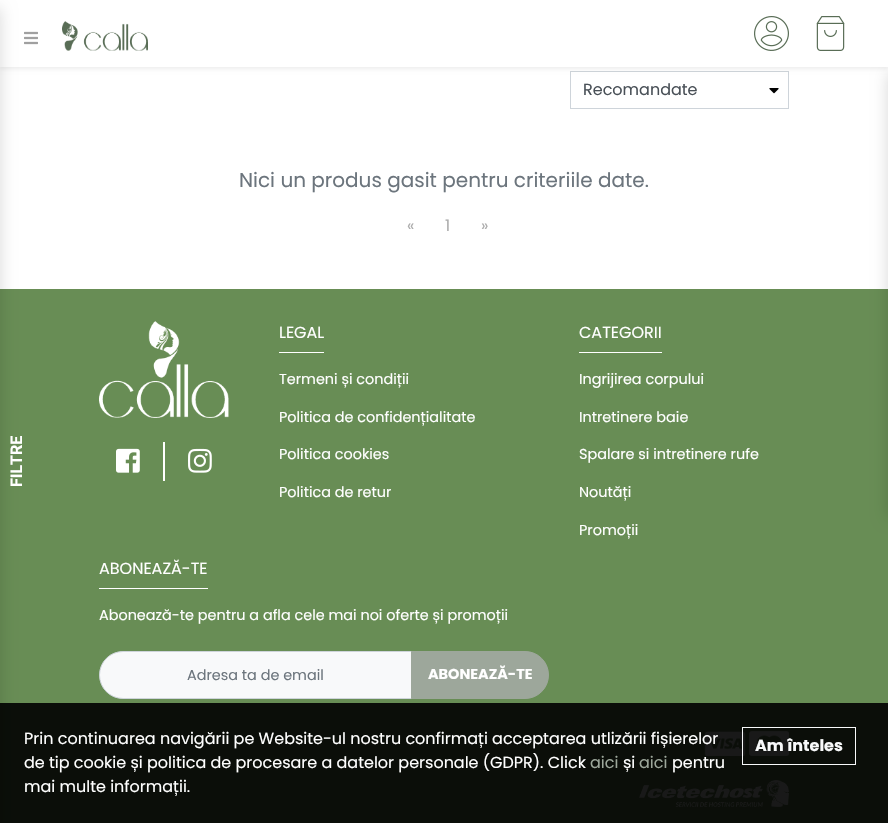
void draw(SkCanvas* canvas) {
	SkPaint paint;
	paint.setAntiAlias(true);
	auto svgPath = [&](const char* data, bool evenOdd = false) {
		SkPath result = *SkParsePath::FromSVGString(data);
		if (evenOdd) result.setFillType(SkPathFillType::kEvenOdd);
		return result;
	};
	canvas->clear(0xffffffff);
	paint.setStroke(true);
	paint.setStrokeWidth(1);
	paint.setColor(0xffced4da);
	canvas->drawRect(SkRect::MakeXYWH(570.5, 71.5, 218, 37), paint);
	paint.setStroke(false);
	paint.setColor(0x12000000);
	paint.setMaskFilter(SkMaskFilter::MakeBlur(kNormal_SkBlurStyle, 2));
	canvas->drawRect(SkRect::MakeXYWH(0, 2, 888, 67), paint);
	paint.setMaskFilter(nullptr);
	paint.setColor(0xff688d55);
	canvas->drawRect(SkRect::MakeXYWH(0, 289, 888, 534), paint);
	paint.setColor(0x26000000);
	paint.setMaskFilter(SkMaskFilter::MakeBlur(kNormal_SkBlurStyle, 8));
	canvas->drawRect(SkRect::MakeXYWH(888, 73, 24, 444), paint);
	paint.setMaskFilter(nullptr);
	paint.setColor(0xffffffff);
	canvas->drawRect(SkRect::MakeXYWH(0, 0, 888, 67), paint);
	canvas->drawImageRect(SkImages::DeferredFromEncodedData(SkData::MakeFromFileName("img1.png")), SkRect::MakeXYWH(24, 31, 14, 14), SkSamplingOptions());
	canvas->drawImageRect(SkImages::DeferredFromEncodedData(SkData::MakeFromFileName("img2.png")), SkRect::MakeXYWH(62, 21, 86, 30), SkSamplingOptions());
	canvas->drawImageRect(SkImages::DeferredFromEncodedData(SkData::MakeFromFileName("img3.png")), SkRect::MakeXYWH(754, 16, 35, 35), SkSamplingOptions());
	canvas->drawImageRect(SkImages::DeferredFromEncodedData(SkData::MakeFromFileName("img4.png")), SkRect::MakeXYWH(816, 16, 29, 35), SkSamplingOptions());
	paint.setColor(0x26000000);
	paint.setMaskFilter(SkMaskFilter::MakeBlur(kNormal_SkBlurStyle, 8));
	canvas->drawRect(SkRect::MakeXYWH(-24, 8, 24, 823), paint);
	paint.setMaskFilter(nullptr);
	SkFont f1(fontMgr->matchFamilyStyle("Poppins", SkFontStyle::Normal()), 16);
	f1.setSubpixel(true);
	paint.setColor(0xff495057);
	canvas->drawString("Recomandate", 583, 95, f1, paint);
	canvas->drawImageRect(SkImages::DeferredFromEncodedData(SkData::MakeFromFileName("img5.png")), SkRect::MakeXYWH(769, 88, 10, 6), SkSamplingOptions());
	SkFont f2(fontMgr->matchFamilyStyle("Poppins", SkFontStyle::Normal()), 20);
	f2.setSubpixel(true);
	paint.setColor(0xff6c757d);
	canvas->drawString("Nici un produs gasit pentru criteriile date.", 239, 187, f2, paint);
	paint.setColor(0xffadadad);
	canvas->drawString("«", 407, 231, f1, paint);
	canvas->drawString("1", 445, 231, f1, paint);
	canvas->drawString("»", 481, 231, f1, paint);
	SkFont f3(fontMgr->matchFamilyStyle("Roboto", SkFontStyle::Bold()), 16);
	f3.setSubpixel(true);
	paint.setColor(0xffffffff);
	canvas->save();
	canvas->rotate(-90, 22, 487);
	canvas->drawString("FILTRE", 22, 487, f3, paint);
	canvas->restore();
	canvas->drawImageRect(SkImages::DeferredFromEncodedData(SkData::MakeFromFileName("img6.png")), SkRect::MakeXYWH(99, 321, 130, 97), SkSamplingOptions());
	canvas->drawImageRect(SkImages::DeferredFromEncodedData(SkData::MakeFromFileName("img7.png")), SkRect::MakeXYWH(116, 448, 24, 25), SkSamplingOptions());
	canvas->drawRect(SkRect::MakeXYWH(163, 442, 2, 39), paint);
	canvas->drawImageRect(SkImages::DeferredFromEncodedData(SkData::MakeFromFileName("img8.png")), SkRect::MakeXYWH(188, 448, 24, 25), SkSamplingOptions());
	canvas->drawString("LEGAL", 279, 338, f1, paint);
	canvas->drawRect(SkRect::MakeXYWH(279, 352, 45, 1), paint);
	SkFont f4(fontMgr->matchFamilyStyle("Poppins", SkFontStyle::Normal()), 14.4);
	f4.setSubpixel(true);
	canvas->drawString("Termeni și condiții", 279, 384, f4, paint);
	canvas->drawString("Politica de confidențialitate", 279, 422, f4, paint);
	canvas->drawString("Politica cookies", 279, 459, f4, paint);
	canvas->drawString("Politica de retur", 279, 497, f4, paint);
	canvas->drawString("CATEGORII", 579, 338, f1, paint);
	canvas->drawRect(SkRect::MakeXYWH(579, 352, 83, 1), paint);
	canvas->drawString("Ingrijirea corpului", 579, 384, f4, paint);
	canvas->drawString("Intretinere baie", 579, 422, f4, paint);
	canvas->drawString("Spalare si intretinere rufe", 579, 459, f4, paint);
	canvas->drawString("Noutăți", 579, 497, f4, paint);
	canvas->drawString("Promoții", 579, 535, f4, paint);
	canvas->drawString("ABONEAZĂ-TE", 99, 574, f1, paint);
	canvas->drawRect(SkRect::MakeXYWH(99, 588, 109, 1), paint);
	canvas->drawString("Abonează-te pentru a afla cele mai noi oferte și promoții", 99, 620, f4, paint);
	paint.setColor(0xfff8f9fa);
	canvas->drawPath(svgPath("M123 651.5H411.5V698.5H123C110 698.5 99.5 688 99.5 675C99.5 662 110 651.5 123 651.5Z"), paint);
	paint.setStroke(true);
	paint.setColor(0xffced4da);
	canvas->drawPath(svgPath("M123 651.5H411.5V698.5H123C110 698.5 99.5 688 99.5 675C99.5 662 110 651.5 123 651.5Z"), paint);
	paint.setStroke(false);
	paint.setColor(0xff6c757d);
	canvas->drawString("Adresa ta de email", 187, 680, f4, paint);
	paint.setColor(0xff9da79b);
	canvas->drawPath(svgPath("M411.5 651.5H525C538 651.5 548.5 662 548.5 675C548.5 688 538 698.5 525 698.5H411.5Z"), paint);
	paint.setStroke(true);
	canvas->drawPath(svgPath("M411.5 651.5H525C538 651.5 548.5 662 548.5 675C548.5 688 538 698.5 525 698.5H411.5Z"), paint);
	SkFont f5(fontMgr->matchFamilyStyle("Poppins", SkFontStyle::Bold()), 14.4);
	f5.setSubpixel(true);
	paint.setStroke(false);
	paint.setColor(0xffffffff);
	canvas->drawString("ABONEAZĂ-TE", 428, 679, f5, paint);
	canvas->drawImageRect(SkImages::DeferredFromEncodedData(SkData::MakeFromFileName("img9.png")), SkRect::MakeXYWH(704, 731, 85, 25), SkSamplingOptions());
	canvas->drawImageRect(SkImages::DeferredFromEncodedData(SkData::MakeFromFileName("img10.png")), SkRect::MakeXYWH(639, 780, 150, 27), SkSamplingOptions());
	paint.setColor(0xe6000000);
	canvas->drawRect(SkRect::MakeXYWH(0, 703, 888, 120), paint);
	paint.setColor(0xffffffff);
	canvas->drawString("Prin continuarea navigării pe Website-ul nostru confirmați acceptarea utlizării fișierelor", 24, 744, f1, paint);
	paint.setStroke(true);
	paint.setColor(0xfff8f9fa);
	canvas->drawRect(SkRect::MakeXYWH(742.5, 727.5, 113, 37), paint);
	SkFont f6(fontMgr->matchFamilyStyle("Poppins", SkFontStyle::Bold()), 16);
	f6.setSubpixel(true);
	paint.setStroke(false);
	canvas->drawString("Am înteles", 755, 751, f6, paint);
	paint.setColor(0xffffffff);
	canvas->drawString("de tip cookie și politica de procesare a datelor personale (GDPR). Click", 24, 768, f1, paint);
	paint.setColor(0xff9da79b);
	canvas->drawString("aici", 590, 768, f1, paint);
	paint.setColor(0xffffffff);
	canvas->drawString("și", 623, 768, f1, paint);
	paint.setColor(0xff9da79b);
	canvas->drawString("aici", 639, 768, f1, paint);
	paint.setColor(0xffffffff);
	canvas->drawString("pentru", 672, 768, f1, paint);
	canvas->drawString("mai multe informații.", 24, 792, f1, paint);
}
